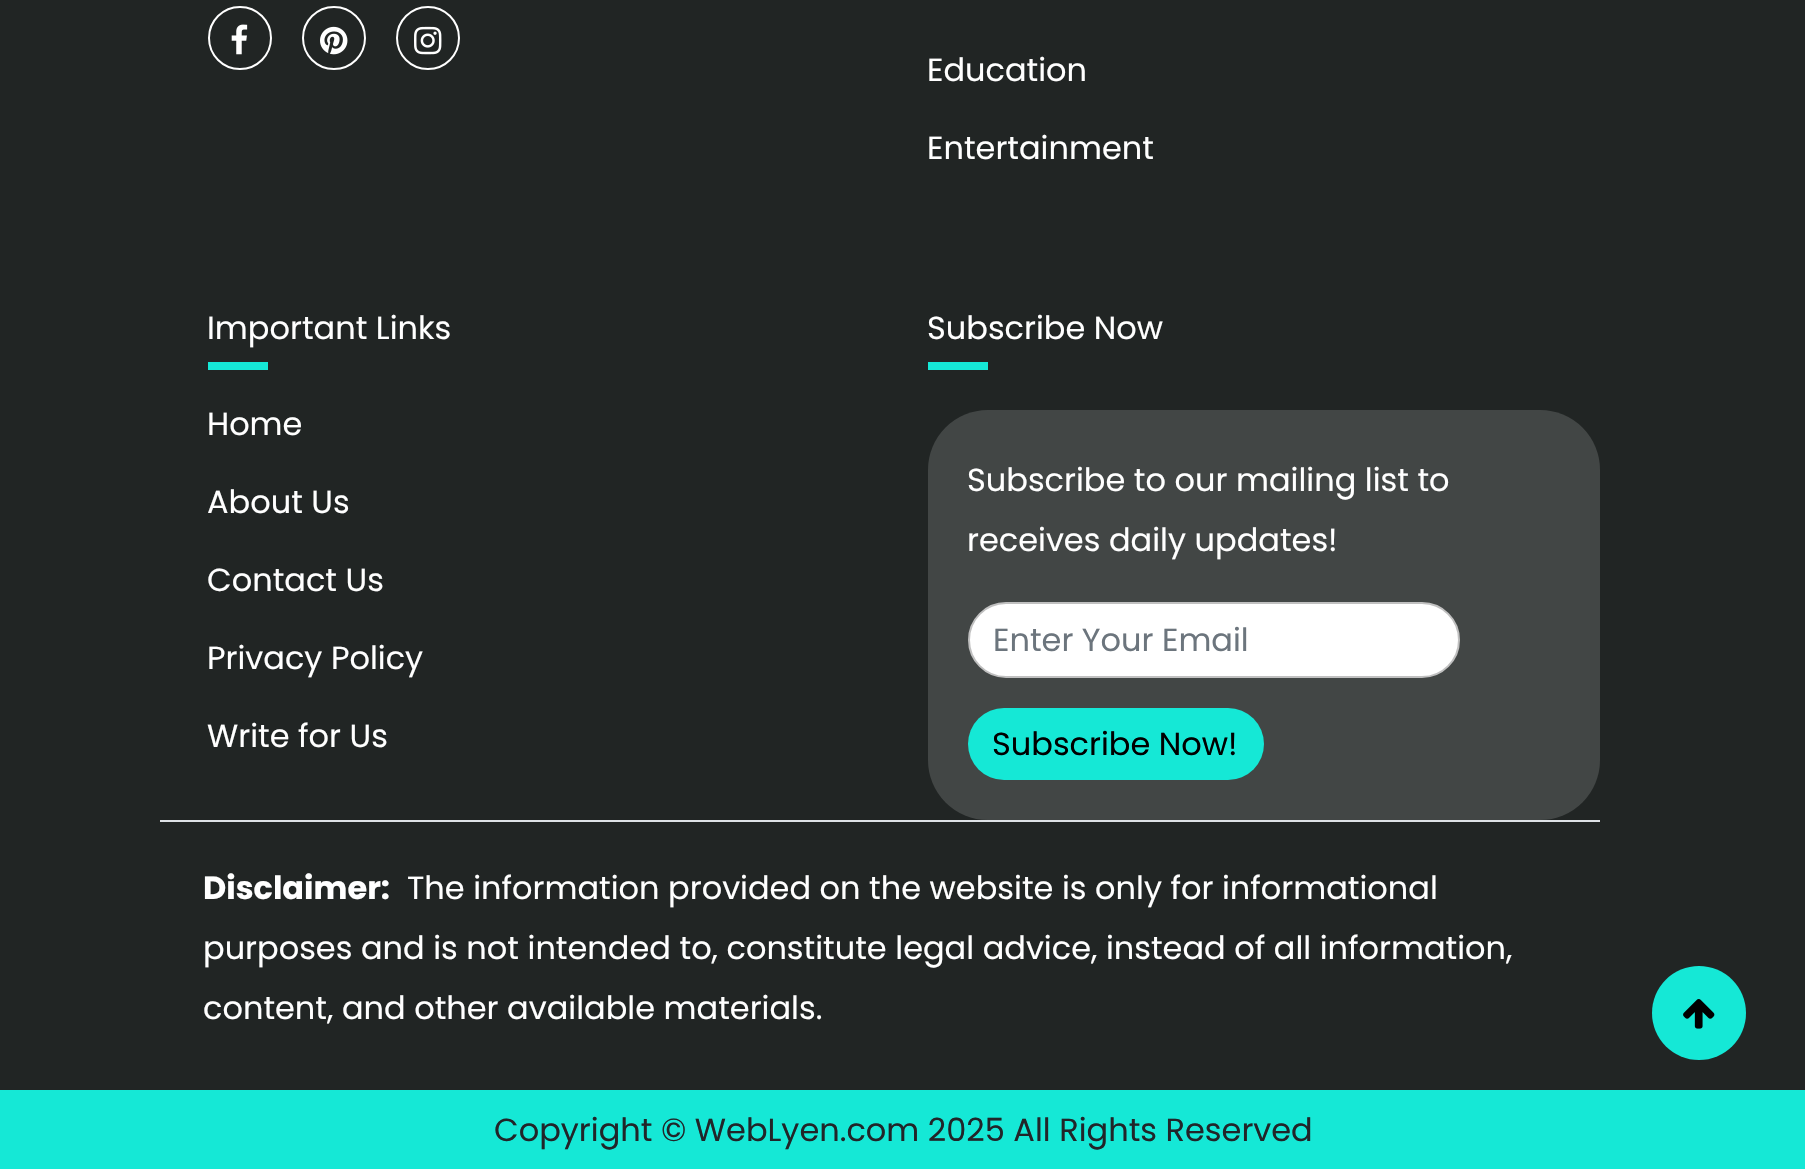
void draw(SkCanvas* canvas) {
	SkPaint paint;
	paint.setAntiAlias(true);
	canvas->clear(0xff212524);
	paint.setStroke(true);
	paint.setStrokeWidth(2);
	paint.setColor(0xffffffff);
	canvas->drawCircle(240, 38, 31, paint);
	canvas->drawImageRect(SkImages::DeferredFromEncodedData(SkData::MakeFromFileName("img1.png")), SkRect::MakeXYWH(231, 24, 17, 31), SkSamplingOptions());
	canvas->drawCircle(334, 38, 31, paint);
	canvas->drawImageRect(SkImages::DeferredFromEncodedData(SkData::MakeFromFileName("img2.png")), SkRect::MakeXYWH(320, 26, 28, 29), SkSamplingOptions());
	canvas->drawCircle(428, 38, 31, paint);
	canvas->drawImageRect(SkImages::DeferredFromEncodedData(SkData::MakeFromFileName("img3.png")), SkRect::MakeXYWH(414, 26, 28, 29), SkSamplingOptions());
	SkFont f1(fontMgr->matchFamilyStyle("Poppins", SkFontStyle::Normal()), 32);
	f1.setSubpixel(true);
	paint.setStroke(false);
	canvas->drawString("Education", 927, 81, f1, paint);
	canvas->drawString("Entertainment", 927, 159, f1, paint);
	canvas->drawString("Important Links", 207, 339, f1, paint);
	paint.setColor(0xff15e8d6);
	canvas->drawRect(SkRect::MakeXYWH(208, 362, 60, 8), paint);
	paint.setColor(0xffffffff);
	canvas->drawString("Home", 207, 435, f1, paint);
	canvas->drawString("About Us", 207, 513, f1, paint);
	canvas->drawString("Contact Us", 207, 591, f1, paint);
	canvas->drawString("Privacy Policy", 207, 669, f1, paint);
	canvas->drawString("Write for Us", 207, 747, f1, paint);
	canvas->drawString("Subscribe Now", 927, 339, f1, paint);
	paint.setColor(0xff15e8d6);
	canvas->drawRect(SkRect::MakeXYWH(928, 362, 60, 8), paint);
	paint.setColor(0xff424645);
	canvas->drawRoundRect(SkRect::MakeXYWH(928, 410, 672, 410), 60, 60, paint);
	paint.setColor(0xffffffff);
	canvas->drawString("Subscribe to our mailing list to", 967, 491, f1, paint);
	canvas->drawString("receives daily updates!", 967, 551, f1, paint);
	canvas->drawRoundRect(SkRect::MakeXYWH(969, 603, 490, 74), 37, 37, paint);
	paint.setStroke(true);
	paint.setColor(0xffc0c0c0);
	canvas->drawRoundRect(SkRect::MakeXYWH(969, 603, 490, 74), 37, 37, paint);
	paint.setStroke(false);
	paint.setColor(0xff6c757d);
	canvas->drawString("Enter Your Email", 993, 651, f1, paint);
	paint.setColor(0xff15e8d6);
	canvas->drawRoundRect(SkRect::MakeXYWH(968, 708, 296, 72), 36, 36, paint);
	paint.setColor(0xff000000);
	canvas->drawString("Subscribe Now!", 992, 755, f1, paint);
	paint.setColor(0xffdee2e6);
	canvas->drawRect(SkRect::MakeXYWH(160, 820, 1440, 2), paint);
	SkFont f2(fontMgr->matchFamilyStyle("Poppins", SkFontStyle::Bold()), 32);
	f2.setSubpixel(true);
	paint.setColor(0xffffffff);
	canvas->drawString("Disclaimer:", 203, 899, f2, paint);
	canvas->drawString("The information provided on the website is only for informational", 407, 899, f1, paint);
	canvas->drawString("purposes and is not intended to, constitute legal advice, instead of all information,", 203, 959, f1, paint);
	canvas->drawString("content, and other available materials.", 203, 1019, f1, paint);
	paint.setColor(0xff15e8d6);
	canvas->drawCircle(1699, 1013, 47, paint);
	canvas->drawImageRect(SkImages::DeferredFromEncodedData(SkData::MakeFromFileName("img4.png")), SkRect::MakeXYWH(1683, 999, 32, 30), SkSamplingOptions());
	canvas->drawRect(SkRect::MakeXYWH(0, 1090, 1805, 79), paint);
	paint.setColor(0xff212529);
	canvas->drawString("Copyright © WebLyen.com 2025 All Rights Reserved", 494, 1141, f1, paint);
}
